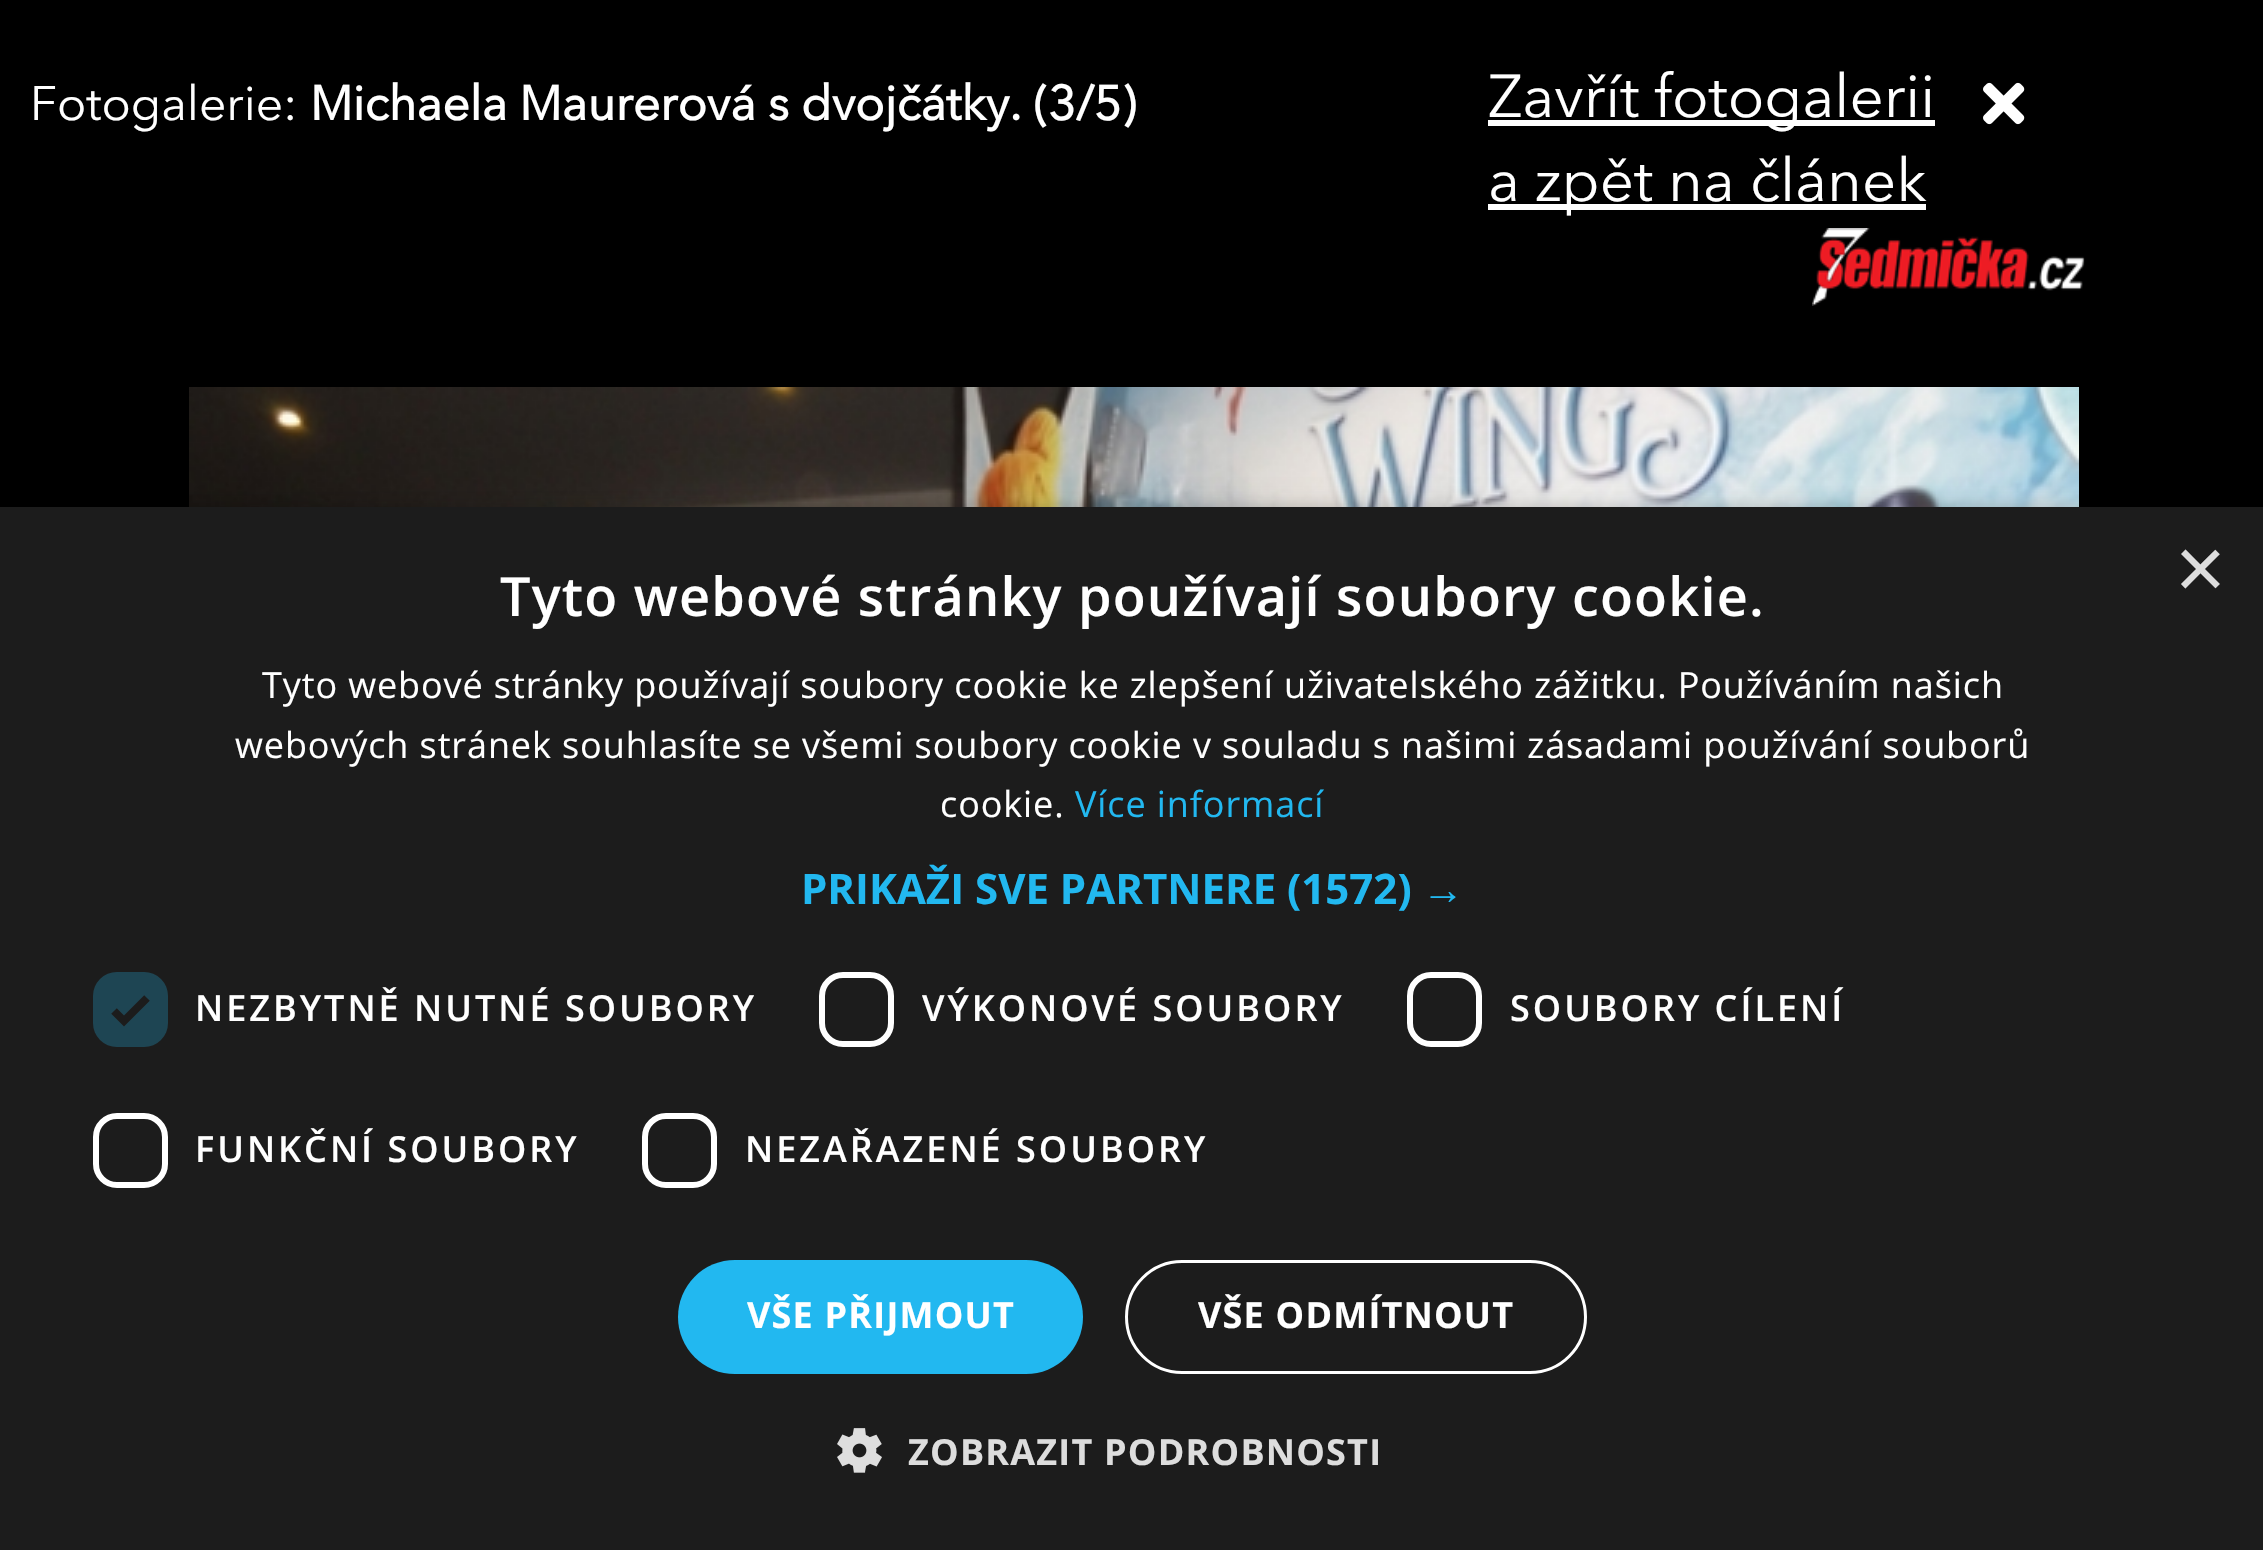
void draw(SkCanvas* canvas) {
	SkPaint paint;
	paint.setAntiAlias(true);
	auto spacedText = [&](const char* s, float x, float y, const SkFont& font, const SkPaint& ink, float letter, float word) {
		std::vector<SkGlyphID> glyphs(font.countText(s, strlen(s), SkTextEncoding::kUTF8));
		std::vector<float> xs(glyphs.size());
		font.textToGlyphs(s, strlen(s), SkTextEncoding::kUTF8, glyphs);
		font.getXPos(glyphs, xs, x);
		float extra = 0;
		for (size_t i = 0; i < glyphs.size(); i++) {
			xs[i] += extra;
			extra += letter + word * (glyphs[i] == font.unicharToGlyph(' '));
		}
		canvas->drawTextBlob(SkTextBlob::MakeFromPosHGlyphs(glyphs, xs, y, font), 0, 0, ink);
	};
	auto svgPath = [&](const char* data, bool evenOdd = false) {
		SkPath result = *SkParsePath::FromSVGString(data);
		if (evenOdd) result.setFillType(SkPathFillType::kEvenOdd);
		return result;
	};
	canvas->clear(0xff000000);
	SkFont f1(fontMgr->matchFamilyStyle("Avenir Next", SkFontStyle::Normal()), 48);
	f1.setSubpixel(true);
	paint.setColor(0xffffffff);
	canvas->drawString("Fotogalerie:", 30, 120, f1, paint);
	SkFont f2(fontMgr->matchFamilyStyle("Avenir Next", SkFontStyle::Bold()), 48);
	f2.setSubpixel(true);
	canvas->drawString("Michaela Maurerová s dvojčátky. (3/5)", 310, 120, f2, paint);
	canvas->drawRect(SkRect::MakeXYWH(1488, 120, 447, 6), paint);
	SkFont f3(fontMgr->matchFamilyStyle("Avenir Next", SkFontStyle::Normal()), 60);
	f3.setSubpixel(true);
	canvas->drawString("Zavřít fotogalerii", 1488, 117, f3, paint);
	canvas->drawImageRect(SkImages::DeferredFromEncodedData(SkData::MakeFromFileName("img1.png")), SkRect::MakeXYWH(1983, 82, 42, 43), SkSamplingOptions());
	canvas->drawRect(SkRect::MakeXYWH(1488, 204, 438, 6), paint);
	canvas->drawString("a zpět na článek", 1488, 201, f3, paint);
	canvas->drawImageRect(SkImages::DeferredFromEncodedData(SkData::MakeFromFileName("img2.png")), SkRect::MakeXYWH(1812, 228, 273, 78), SkSamplingOptions());
	canvas->drawImageRect(SkImages::DeferredFromEncodedData(SkData::MakeFromFileName("img3.png")), SkRect::MakeXYWH(189, 387, 1890, 120), SkSamplingOptions());
	paint.setColor(0x59000000);
	paint.setMaskFilter(SkMaskFilter::MakeBlur(kNormal_SkBlurStyle, 12));
	canvas->drawRect(SkRect::MakeXYWH(3, 513, 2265, 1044), paint);
	paint.setMaskFilter(nullptr);
	paint.setColor(0xff1c1c1c);
	canvas->drawRect(SkRect::MakeXYWH(0, 507, 2263, 1043), paint);
	SkFont f4(fontMgr->matchFamilyStyle("Liberation Sans", SkFontStyle::Normal()), 87);
	f4.setSubpixel(true);
	paint.setColor(0xffdddddd);
	canvas->drawString("×", 2175, 598, f4, paint);
	SkFont f5(fontMgr->matchFamilyStyle("Open Sans", SkFontStyle(600, SkFontStyle::kNormal_Width, SkFontStyle::kUpright_Slant)), 54);
	f5.setSubpixel(true);
	paint.setColor(0xffffffff);
	spacedText("Tyto webové stránky používají soubory cookie.", 500, 616, f5, paint, 1.2, 0);
	SkFont f6(fontMgr->matchFamilyStyle("Open Sans", SkFontStyle::Normal()), 36);
	f6.setSubpixel(true);
	spacedText("Tyto webové stránky používají soubory cookie ke zlepšení uživatelského zážitku. Používáním našich", 262, 698, f6, paint, 0.9, 0);
	spacedText("webových stránek souhlasíte se všemi soubory cookie v souladu s našimi zásadami používání souborů", 235, 758, f6, paint, 0.9, 0);
	spacedText("cookie.", 940, 817, f6, paint, 0.9, 0);
	paint.setColor(0xff22b8f0);
	spacedText("Více informací", 1075, 817, f6, paint, 0.9, 0);
	SkFont f7(fontMgr->matchFamilyStyle("Open Sans", SkFontStyle::Bold()), 42);
	f7.setSubpixel(true);
	canvas->drawString("PRIKAŽI SVE PARTNERE (1572)", 801, 904, f7, paint);
	SkFont f8(fontMgr->matchFamilyStyle("Liberation Sans", SkFontStyle::Bold()), 42);
	f8.setSubpixel(true);
	canvas->drawString("→", 1422, 904, f8, paint);
	paint.setColor(0xff1e4553);
	canvas->drawRoundRect(SkRect::MakeXYWH(93, 972, 75, 75), 24, 24, paint);
	paint.setStroke(true);
	paint.setStrokeWidth(7.9);
	paint.setColor(0xff1c1c1c);
	canvas->drawPath(svgPath("M114 1011L124 1021L147 998"), paint);
	SkFont f9(fontMgr->matchFamilyStyle("Open Sans", SkFontStyle(600, SkFontStyle::kNormal_Width, SkFontStyle::kUpright_Slant)), 36);
	f9.setSubpixel(true);
	paint.setStroke(false);
	paint.setColor(0xffffffff);
	spacedText("NEZBYTNĚ NUTNÉ SOUBORY", 195, 1021, f9, paint, 3, 0);
	paint.setStroke(true);
	paint.setStrokeWidth(6);
	canvas->drawRoundRect(SkRect::MakeXYWH(822, 975, 69, 69), 21, 21, paint);
	paint.setStroke(false);
	spacedText("VÝKONOVÉ SOUBORY", 922, 1021, f9, paint, 3, 0);
	paint.setStroke(true);
	canvas->drawRoundRect(SkRect::MakeXYWH(1410, 975, 69, 69), 21, 21, paint);
	paint.setStroke(false);
	spacedText("SOUBORY CÍLENÍ", 1510, 1021, f9, paint, 3, 0);
	paint.setStroke(true);
	canvas->drawRoundRect(SkRect::MakeXYWH(96, 1116, 69, 69), 21, 21, paint);
	paint.setStroke(false);
	spacedText("FUNKČNÍ SOUBORY", 195, 1162, f9, paint, 3, 0);
	paint.setStroke(true);
	canvas->drawRoundRect(SkRect::MakeXYWH(645, 1116, 69, 69), 21, 21, paint);
	paint.setStroke(false);
	spacedText("NEZAŘAZENÉ SOUBORY", 745, 1162, f9, paint, 3, 0);
	paint.setColor(0xff22b8f0);
	canvas->drawRoundRect(SkRect::MakeXYWH(678, 1260, 405, 114), 57, 57, paint);
	SkFont f10(fontMgr->matchFamilyStyle("Open Sans", SkFontStyle::Bold()), 36);
	f10.setSubpixel(true);
	paint.setColor(0xffffffff);
	spacedText("VŠE PŘIJMOUT", 747, 1328, f10, paint, 1.2, 0);
	paint.setStroke(true);
	paint.setStrokeWidth(3);
	canvas->drawRoundRect(SkRect::MakeXYWH(1126.5, 1261.5, 459, 111), 55.5, 55.5, paint);
	paint.setStroke(false);
	spacedText("VŠE ODMÍTNOUT", 1198, 1328, f10, paint, 1.2, 0);
	canvas->drawImageRect(SkImages::DeferredFromEncodedData(SkData::MakeFromFileName("img4.png")), SkRect::MakeXYWH(837, 1428, 45, 45), SkSamplingOptions());
	paint.setColor(0xffdddddd);
	spacedText("ZOBRAZIT PODROBNOSTI", 908, 1465, f10, paint, 1.2, 0);
}
